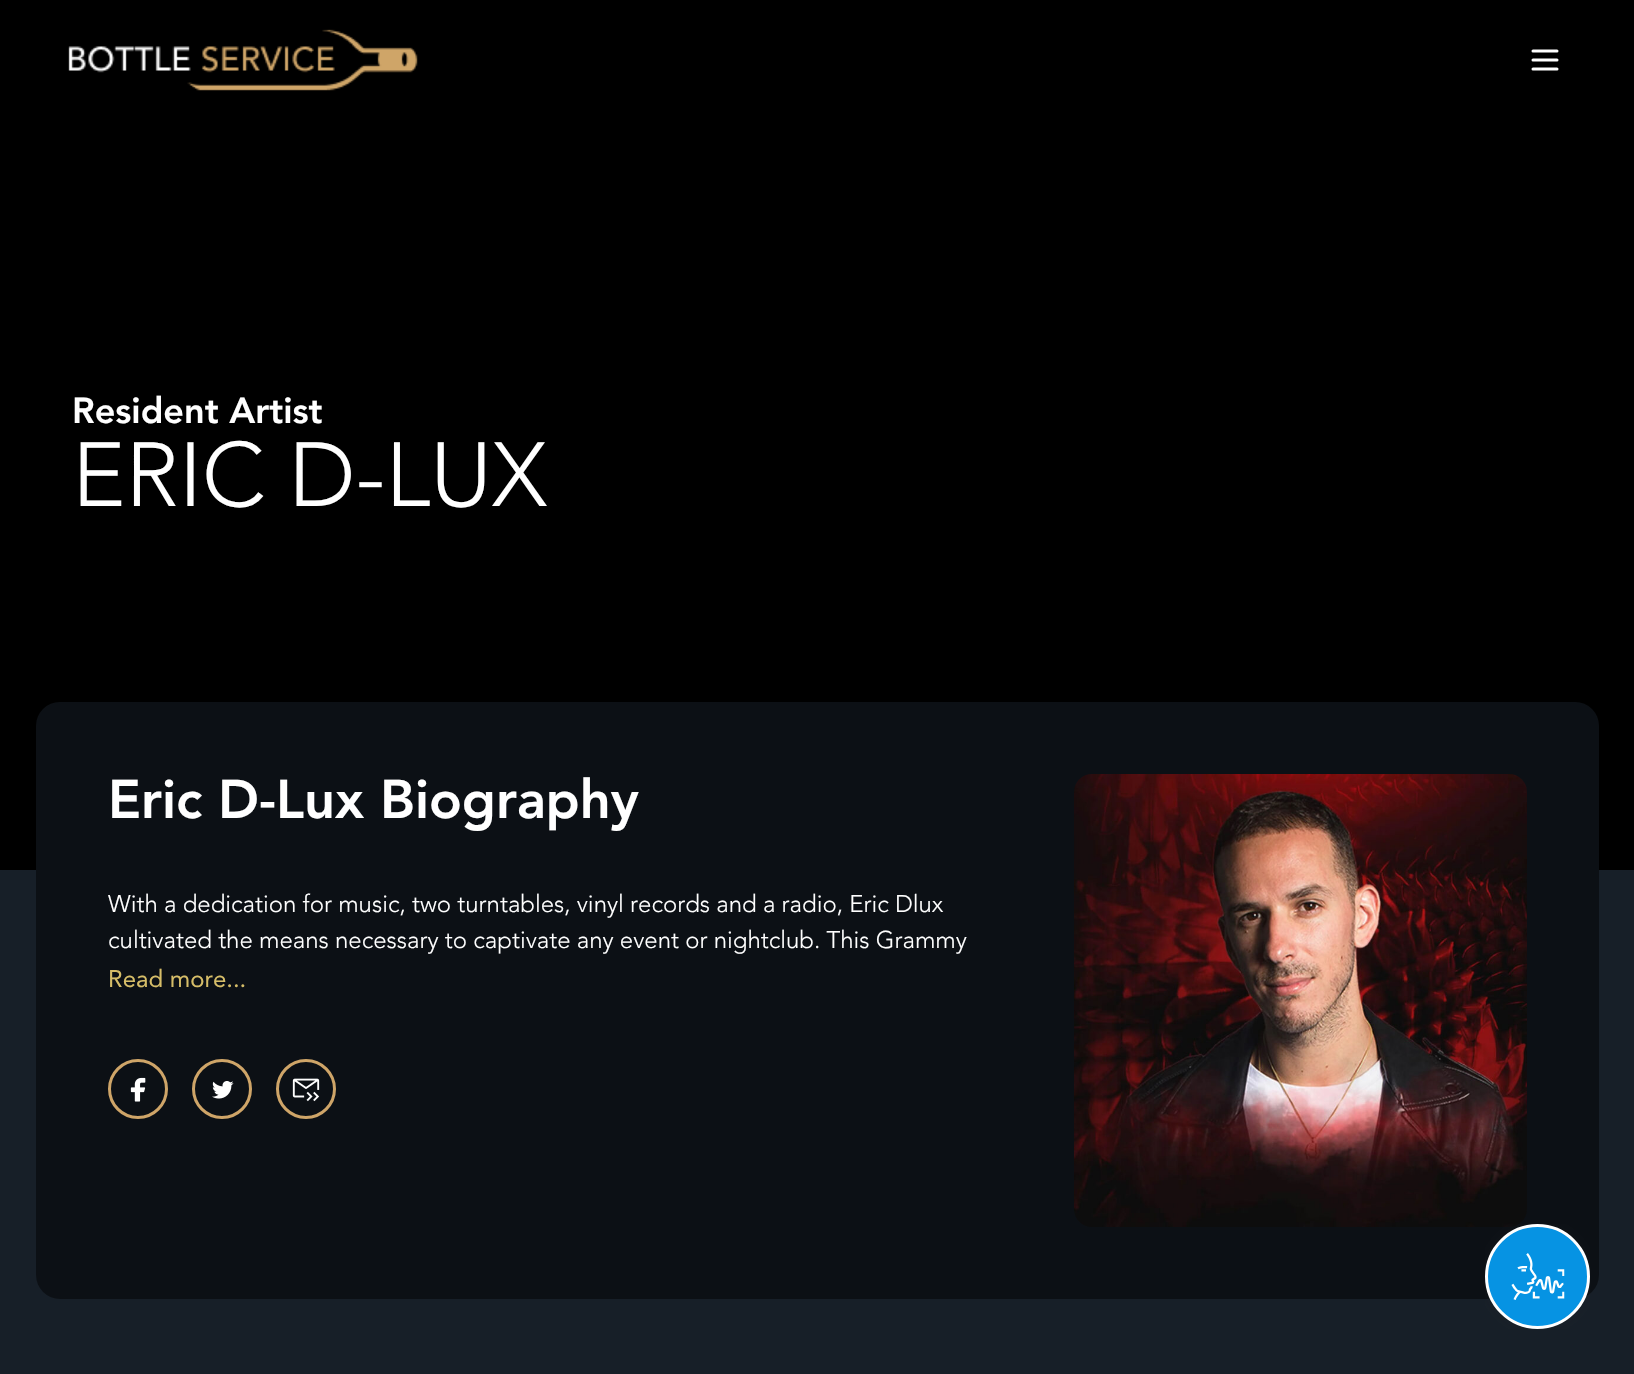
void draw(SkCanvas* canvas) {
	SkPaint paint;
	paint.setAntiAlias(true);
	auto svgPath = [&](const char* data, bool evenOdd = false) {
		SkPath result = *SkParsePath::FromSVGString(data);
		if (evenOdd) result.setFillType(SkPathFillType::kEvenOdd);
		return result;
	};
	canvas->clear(0xff171f28);
	paint.setColor(0xff000000);
	canvas->drawRect(SkRect::MakeXYWH(0, 0, 1634, 870), paint);
	canvas->drawImageRect(SkImages::DeferredFromEncodedData(SkData::MakeFromFileName("img1.png")), SkRect::MakeXYWH(68, 29, 350, 62), SkSamplingOptions());
	paint.setStroke(true);
	paint.setStrokeWidth(3);
	paint.setStrokeCap(SkPaint::kRound_Cap);
	paint.setStrokeJoin(SkPaint::kRound_Join);
	paint.setColor(0xffffffff);
	canvas->drawPath(svgPath("M1533 51H1557M1533 60H1557M1533 69H1557"), paint);
	SkFont f1(fontMgr->matchFamilyStyle("Avenir", SkFontStyle(900, SkFontStyle::kNormal_Width, SkFontStyle::kUpright_Slant)), 36);
	f1.setSubpixel(true);
	paint.setStroke(false);
	canvas->drawString("Resident Artist", 72, 423, f1, paint);
	SkFont f2(fontMgr->matchFamilyStyle("Avenir", SkFontStyle(300, SkFontStyle::kNormal_Width, SkFontStyle::kUpright_Slant)), 90);
	f2.setSubpixel(true);
	canvas->drawString("ERIC D-LUX", 72, 506, f2, paint);
	paint.setColor(0xff0c1015);
	canvas->drawRoundRect(SkRect::MakeXYWH(36, 702, 1563, 597), 24, 24, paint);
	SkFont f3(fontMgr->matchFamilyStyle("Avenir", SkFontStyle(900, SkFontStyle::kNormal_Width, SkFontStyle::kUpright_Slant)), 54);
	f3.setSubpixel(true);
	paint.setColor(0xffffffff);
	canvas->drawString("Eric D-Lux Biography", 108, 818, f3, paint);
	SkFont f4(fontMgr->matchFamilyStyle("Avenir", SkFontStyle(300, SkFontStyle::kNormal_Width, SkFontStyle::kUpright_Slant)), 24);
	f4.setSubpixel(true);
	canvas->drawString("With a dedication for music, two turntables, vinyl records and a radio, Eric Dlux", 108, 912, f4, paint);
	canvas->drawString("cultivated the means necessary to captivate any event or nightclub. This Grammy", 108, 948, f4, paint);
	SkFont f5(fontMgr->matchFamilyStyle("Avenir", SkFontStyle::Normal()), 24);
	f5.setSubpixel(true);
	paint.setColor(0xffd6bd68);
	canvas->drawString("Read more...", 108, 987, f5, paint);
	paint.setStroke(true);
	paint.setStrokeCap(SkPaint::kButt_Cap);
	paint.setStrokeJoin(SkPaint::kMiter_Join);
	paint.setColor(0xffcfa568);
	canvas->drawCircle(138, 1089, 28.5, paint);
	canvas->drawImageRect(SkImages::DeferredFromEncodedData(SkData::MakeFromFileName("img2.png")), SkRect::MakeXYWH(130, 1077, 16, 25), SkSamplingOptions());
	canvas->drawCircle(222, 1089, 28.5, paint);
	canvas->drawImageRect(SkImages::DeferredFromEncodedData(SkData::MakeFromFileName("img3.png")), SkRect::MakeXYWH(212, 1081, 22, 18), SkSamplingOptions());
	canvas->drawCircle(306, 1089, 28.5, paint);
	canvas->drawImageRect(SkImages::DeferredFromEncodedData(SkData::MakeFromFileName("img4.png")), SkRect::MakeXYWH(292, 1078, 28, 24), SkSamplingOptions());
	canvas->drawImageRect(SkImages::DeferredFromEncodedData(SkData::MakeFromFileName("img5.png")), SkRect::MakeXYWH(1074, 774, 453, 453), SkSamplingOptions());
	canvas->drawImageRect(SkImages::DeferredFromEncodedData(SkData::MakeFromFileName("img6.png")), SkRect::MakeXYWH(1485, 1224, 105, 105), SkSamplingOptions());
}
